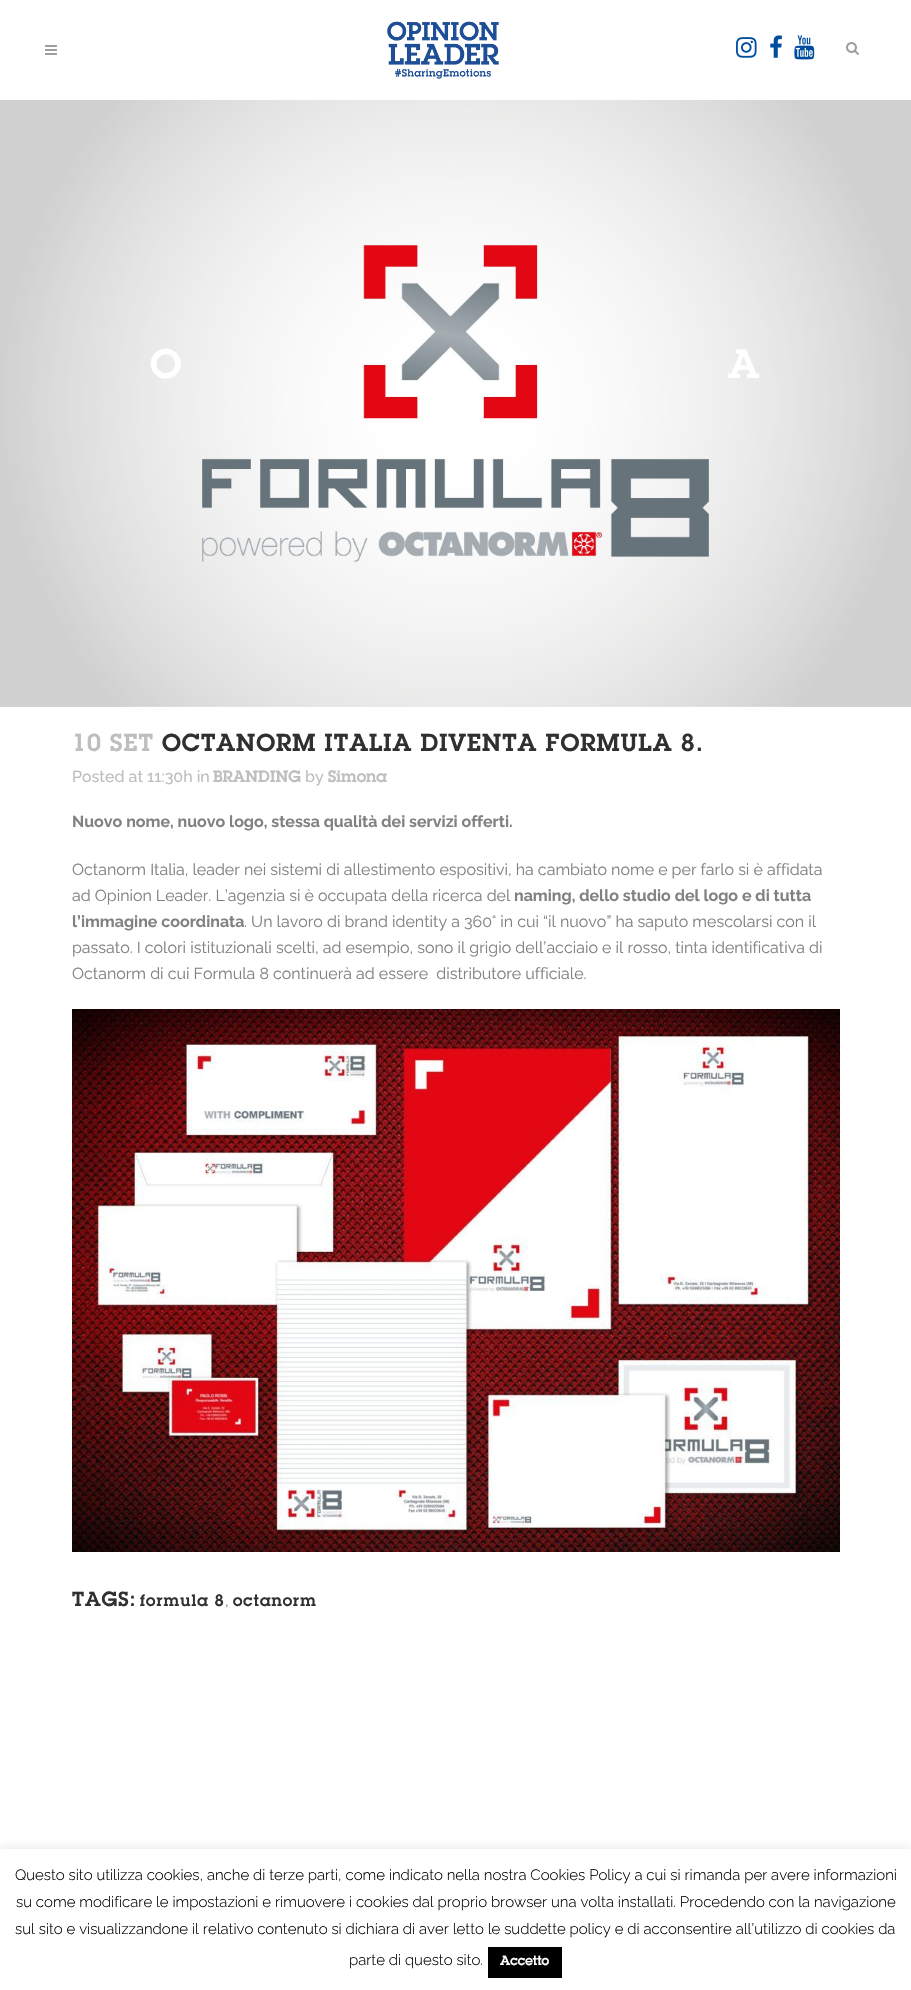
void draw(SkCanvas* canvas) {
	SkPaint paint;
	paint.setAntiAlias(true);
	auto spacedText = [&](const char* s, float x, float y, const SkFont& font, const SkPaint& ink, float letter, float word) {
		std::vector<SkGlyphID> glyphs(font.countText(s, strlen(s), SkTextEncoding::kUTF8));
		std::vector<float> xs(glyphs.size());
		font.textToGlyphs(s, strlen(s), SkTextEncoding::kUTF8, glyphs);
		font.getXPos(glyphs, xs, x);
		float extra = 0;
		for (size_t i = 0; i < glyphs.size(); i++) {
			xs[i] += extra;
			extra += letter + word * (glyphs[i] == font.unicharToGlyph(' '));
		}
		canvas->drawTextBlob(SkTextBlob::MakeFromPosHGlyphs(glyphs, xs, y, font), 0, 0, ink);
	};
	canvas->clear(0xffffffff);
	canvas->drawImageRect(SkImages::DeferredFromEncodedData(SkData::MakeFromFileName("img1.png")), SkRect::MakeXYWH(45, 45, 12, 10), SkSamplingOptions());
	canvas->drawImageRect(SkImages::DeferredFromEncodedData(SkData::MakeFromFileName("img2.png")), SkRect::MakeXYWH(387, 21, 112, 58), SkSamplingOptions());
	canvas->drawImageRect(SkImages::DeferredFromEncodedData(SkData::MakeFromFileName("img3.png")), SkRect::MakeXYWH(736, 37, 21, 21), SkSamplingOptions());
	canvas->drawImageRect(SkImages::DeferredFromEncodedData(SkData::MakeFromFileName("img4.png")), SkRect::MakeXYWH(770, 35, 12, 23), SkSamplingOptions());
	canvas->drawImageRect(SkImages::DeferredFromEncodedData(SkData::MakeFromFileName("img5.png")), SkRect::MakeXYWH(794, 35, 21, 25), SkSamplingOptions());
	canvas->drawImageRect(SkImages::DeferredFromEncodedData(SkData::MakeFromFileName("img6.png")), SkRect::MakeXYWH(846, 42, 13, 13), SkSamplingOptions());
	canvas->drawImageRect(SkImages::DeferredFromEncodedData(SkData::MakeFromFileName("img7.png")), SkRect::MakeXYWH(0, 100, 911, 607), SkSamplingOptions());
	SkFont f1(fontMgr->matchFamilyStyle("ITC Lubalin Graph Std", SkFontStyle(600, SkFontStyle::kNormal_Width, SkFontStyle::kUpright_Slant)), 40);
	f1.setSubpixel(true);
	paint.setColor(0xffffffff);
	spacedText("O", 150, 378, f1, paint, 1, 0);
	spacedText("A", 728, 378, f1, paint, 1, 0);
	SkFont f2(fontMgr->matchFamilyStyle("ITC Lubalin Graph Std", SkFontStyle(600, SkFontStyle::kNormal_Width, SkFontStyle::kUpright_Slant)), 24);
	f2.setSubpixel(true);
	paint.setColor(0xffbebebe);
	spacedText("10 SET", 72, 751, f2, paint, 1, 0);
	paint.setColor(0xff303030);
	spacedText("OCTANORM ITALIA DIVENTA FORMULA 8.", 162, 751, f2, paint, 1, 0);
	SkFont f3(fontMgr->matchFamilyStyle("Raleway", SkFontStyle(500, SkFontStyle::kNormal_Width, SkFontStyle::kUpright_Slant)), 16);
	f3.setSubpixel(true);
	paint.setColor(0xffbebebe);
	canvas->drawString("Posted at 11:30h in", 72, 782, f3, paint);
	SkFont f4(fontMgr->matchFamilyStyle("ITC Lubalin Graph Std", SkFontStyle(600, SkFontStyle::kNormal_Width, SkFontStyle::kUpright_Slant)), 16);
	f4.setSubpixel(true);
	canvas->drawString("BRANDING", 213, 782, f4, paint);
	canvas->drawString("by", 305, 782, f3, paint);
	canvas->drawString("Simona", 328, 782, f4, paint);
	SkFont f5(fontMgr->matchFamilyStyle("Raleway", SkFontStyle::Bold()), 16);
	f5.setSubpixel(true);
	paint.setColor(0xff818181);
	canvas->drawString("Nuovo nome, nuovo logo, stessa qualità dei servizi offerti.", 72, 827, f5, paint);
	SkFont f6(fontMgr->matchFamilyStyle("Raleway", SkFontStyle::Normal()), 16);
	f6.setSubpixel(true);
	canvas->drawString("Octanorm Italia, leader nei sistemi di allestimento espositivi, ha cambiato nome e per farlo si è affidata", 72, 875, f6, paint);
	canvas->drawString("ad Opinion Leader. L’agenzia si è occupata della ricerca del", 72, 901, f6, paint);
	canvas->drawString("naming, dello studio del logo e di tutta", 514, 901, f5, paint);
	canvas->drawString("l’immagine coordinata", 72, 927, f5, paint);
	canvas->drawString(". Un lavoro di brand identity a 360° in cui “il nuovo” ha saputo mescolarsi con il", 244, 927, f6, paint);
	canvas->drawString("passato. I colori istituzionali scelti, ad esempio, sono il grigio dell’acciaio e il rosso, tinta identificativa di", 72, 953, f6, paint);
	canvas->drawString("Octanorm di cui Formula 8 continuerà ad essere  distributore ufficiale.", 72, 979, f6, paint);
	canvas->drawImageRect(SkImages::DeferredFromEncodedData(SkData::MakeFromFileName("img8.png")), SkRect::MakeXYWH(72, 1009, 768, 543), SkSamplingOptions());
	SkFont f7(fontMgr->matchFamilyStyle("ITC Lubalin Graph Std", SkFontStyle(600, SkFontStyle::kNormal_Width, SkFontStyle::kUpright_Slant)), 20);
	f7.setSubpixel(true);
	paint.setColor(0xff303030);
	spacedText("TAGS:", 72, 1606, f7, paint, 1, 0);
	spacedText("formula 8", 140, 1606, f4, paint, 1, 0);
	paint.setColor(0xff818181);
	canvas->drawString(",", 225, 1606, f6, paint);
	paint.setColor(0xff303030);
	spacedText("octanorm", 233, 1606, f4, paint, 1, 0);
	paint.setColor(0x4dacabab);
	paint.setMaskFilter(SkMaskFilter::MakeBlur(kNormal_SkBlurStyle, 5));
	canvas->drawRect(SkRect::MakeXYWH(0, 1848, 911, 141), paint);
	paint.setMaskFilter(nullptr);
	paint.setColor(0xffffffff);
	canvas->drawRect(SkRect::MakeXYWH(0, 1849, 911, 141), paint);
	SkFont f8(fontMgr->matchFamilyStyle("Raleway", SkFontStyle(300, SkFontStyle::kNormal_Width, SkFontStyle::kUpright_Slant)), 15);
	f8.setSubpixel(true);
	paint.setColor(0xff000000);
	canvas->drawString("Questo sito utilizza cookies, anche di terze parti, come indicato nella nostra Cookies Policy a cui si rimanda per avere informazioni", 15, 1880, f8, paint);
	canvas->drawString("su come modificare le impostazioni e rimuovere i cookies dal proprio browser una volta installati. Procedendo con la navigazione", 16, 1907, f8, paint);
	canvas->drawString("sul sito e visualizzandone il relativo contenuto si dichiara di aver letto le suddette policy e di acconsentire all’utilizzo di cookies da", 15, 1934, f8, paint);
	canvas->drawString("parte di questo sito.", 349, 1965, f8, paint);
	canvas->drawRect(SkRect::MakeXYWH(488, 1947, 74, 31), paint);
	SkFont f9(fontMgr->matchFamilyStyle("ITC Lubalin Graph Std", SkFontStyle(600, SkFontStyle::kNormal_Width, SkFontStyle::kUpright_Slant)), 13);
	f9.setSubpixel(true);
	paint.setColor(0xffffffff);
	canvas->drawString("Accetto", 500, 1965, f9, paint);
}
